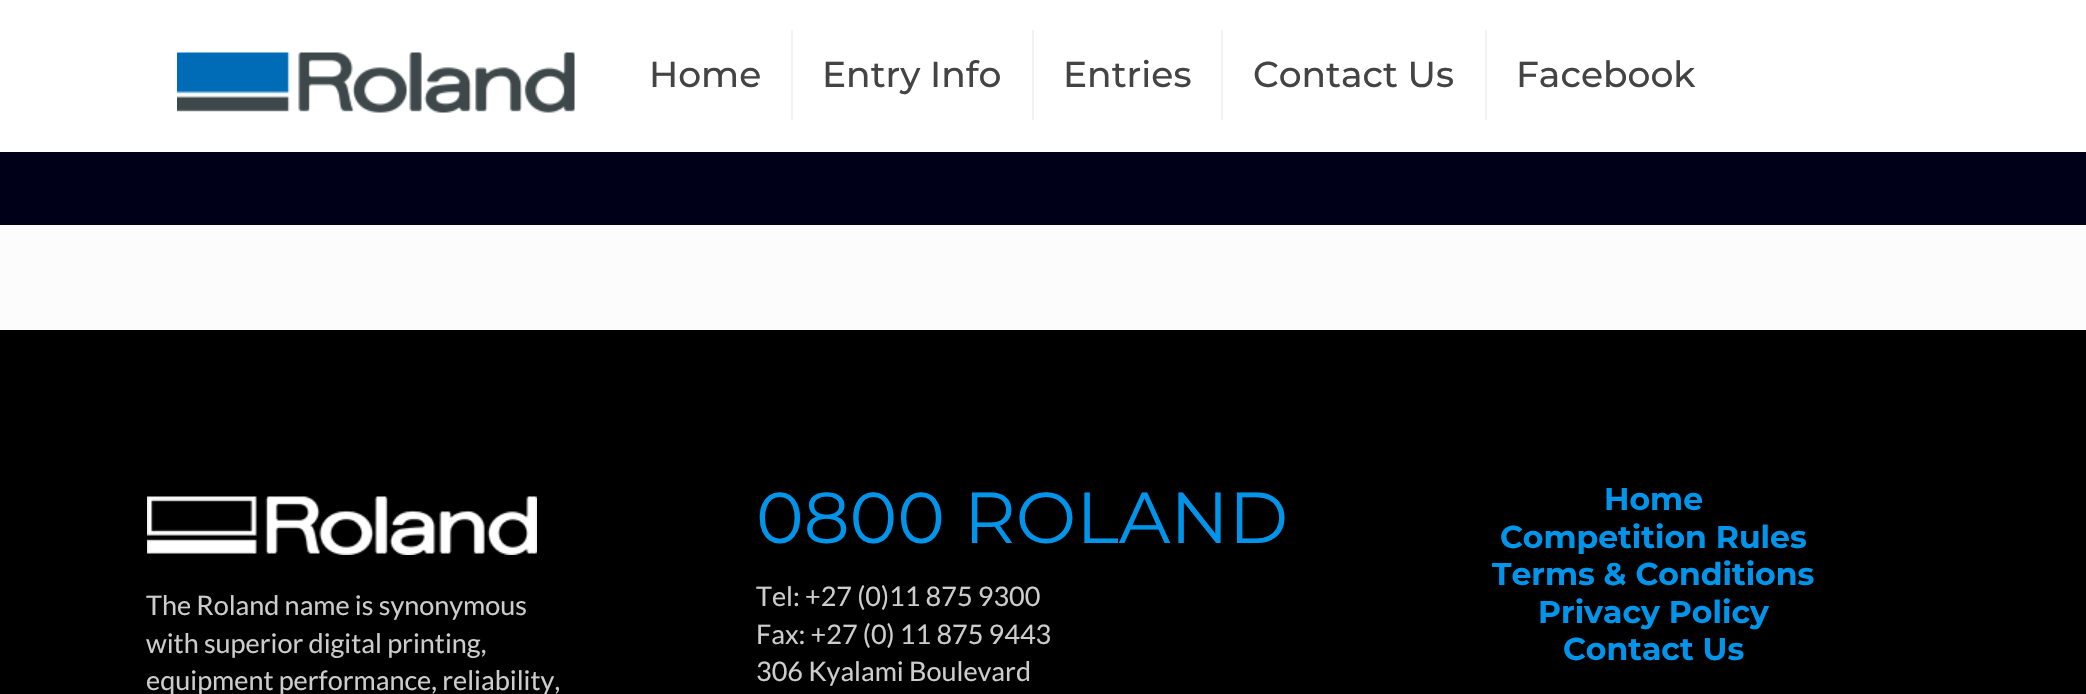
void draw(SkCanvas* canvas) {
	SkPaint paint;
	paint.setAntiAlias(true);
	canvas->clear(0xfffcfcfc);
	paint.setColor(0xff000119);
	canvas->drawRect(SkRect::MakeXYWH(0, 152, 2086, 73), paint);
	paint.setColor(0xffffffff);
	canvas->drawRect(SkRect::MakeXYWH(0, 0, 2086, 152), paint);
	canvas->drawImageRect(SkImages::DeferredFromEncodedData(SkData::MakeFromFileName("img1.png")), SkRect::MakeXYWH(177, 52, 398, 61), SkSamplingOptions());
	paint.setColor(0xfff2f2f2);
	canvas->drawRect(SkRect::MakeXYWH(791, 30, 2, 90), paint);
	SkFont f1(fontMgr->matchFamilyStyle("Montserrat", SkFontStyle(500, SkFontStyle::kNormal_Width, SkFontStyle::kUpright_Slant)), 36);
	f1.setSubpixel(true);
	paint.setColor(0xff444444);
	canvas->drawString("Home", 649, 87, f1, paint);
	paint.setColor(0xfff2f2f2);
	canvas->drawRect(SkRect::MakeXYWH(1032, 30, 2, 90), paint);
	paint.setColor(0xff444444);
	canvas->drawString("Entry Info", 822, 87, f1, paint);
	paint.setColor(0xfff2f2f2);
	canvas->drawRect(SkRect::MakeXYWH(1221, 30, 2, 90), paint);
	paint.setColor(0xff444444);
	canvas->drawString("Entries", 1063, 87, f1, paint);
	paint.setColor(0xfff2f2f2);
	canvas->drawRect(SkRect::MakeXYWH(1485, 30, 2, 90), paint);
	paint.setColor(0xff444444);
	canvas->drawString("Contact Us", 1253, 87, f1, paint);
	canvas->drawString("Facebook", 1516, 87, f1, paint);
	paint.setColor(0xff000000);
	canvas->drawRect(SkRect::MakeXYWH(0, 330, 2086, 364), paint);
	canvas->drawImageRect(SkImages::DeferredFromEncodedData(SkData::MakeFromFileName("img2.png")), SkRect::MakeXYWH(147, 496, 390, 59), SkSamplingOptions());
	SkFont f2(fontMgr->matchFamilyStyle("Lato", SkFontStyle::Normal()), 27);
	f2.setSubpixel(true);
	paint.setColor(0xffcccccc);
	canvas->drawString("The Roland name is synonymous", 146, 615, f2, paint);
	canvas->drawString("with superior digital printing,", 146, 653, f2, paint);
	canvas->drawString("equipment performance, reliability,", 146, 690, f2, paint);
	SkFont f3(fontMgr->matchFamilyStyle("Montserrat", SkFontStyle::Normal()), 72);
	f3.setSubpixel(true);
	paint.setColor(0xff0095eb);
	canvas->drawString("0800 ROLAND", 756, 543, f3, paint);
	paint.setColor(0xffcccccc);
	canvas->drawString("Tel: +27 (0)11 875 9300", 756, 606, f2, paint);
	canvas->drawString("Fax: +27 (0) 11 875 9443", 756, 644, f2, paint);
	canvas->drawString("306 Kyalami Boulevard", 756, 681, f2, paint);
	SkFont f4(fontMgr->matchFamilyStyle("Montserrat", SkFontStyle::Bold()), 31.5);
	f4.setSubpixel(true);
	paint.setColor(0xff0095eb);
	canvas->drawString("Home", 1604, 510, f4, paint);
	canvas->drawString("Competition Rules", 1500, 548, f4, paint);
	canvas->drawString("Terms & Conditions", 1492, 585, f4, paint);
	canvas->drawString("Privacy Policy", 1538, 623, f4, paint);
	canvas->drawString("Contact Us", 1563, 660, f4, paint);
}
